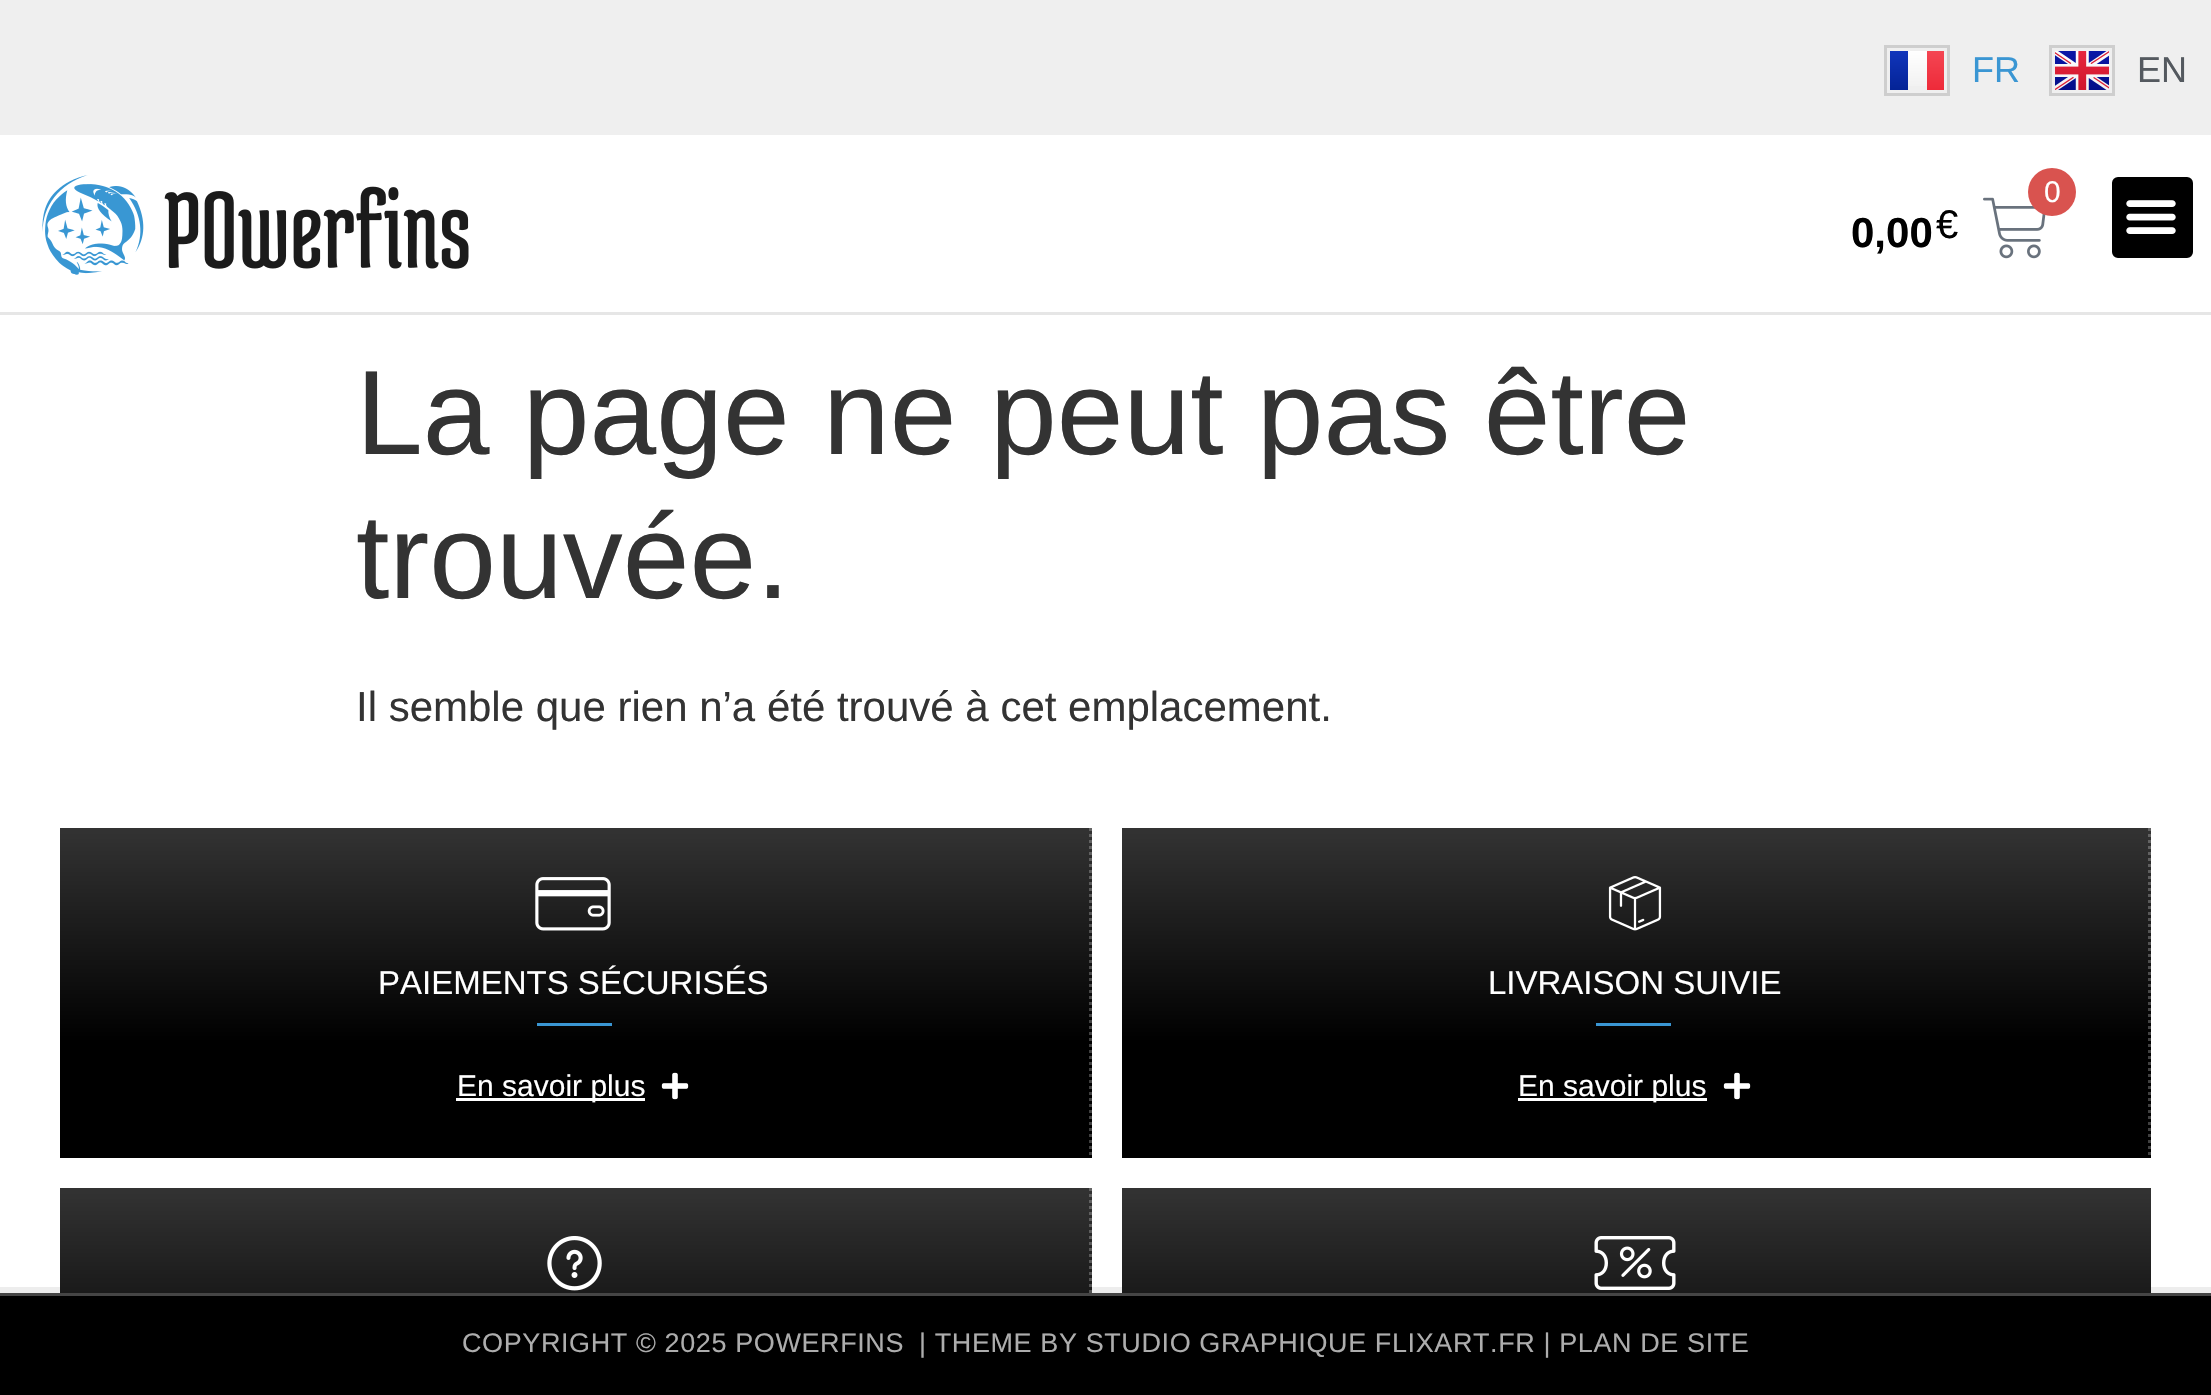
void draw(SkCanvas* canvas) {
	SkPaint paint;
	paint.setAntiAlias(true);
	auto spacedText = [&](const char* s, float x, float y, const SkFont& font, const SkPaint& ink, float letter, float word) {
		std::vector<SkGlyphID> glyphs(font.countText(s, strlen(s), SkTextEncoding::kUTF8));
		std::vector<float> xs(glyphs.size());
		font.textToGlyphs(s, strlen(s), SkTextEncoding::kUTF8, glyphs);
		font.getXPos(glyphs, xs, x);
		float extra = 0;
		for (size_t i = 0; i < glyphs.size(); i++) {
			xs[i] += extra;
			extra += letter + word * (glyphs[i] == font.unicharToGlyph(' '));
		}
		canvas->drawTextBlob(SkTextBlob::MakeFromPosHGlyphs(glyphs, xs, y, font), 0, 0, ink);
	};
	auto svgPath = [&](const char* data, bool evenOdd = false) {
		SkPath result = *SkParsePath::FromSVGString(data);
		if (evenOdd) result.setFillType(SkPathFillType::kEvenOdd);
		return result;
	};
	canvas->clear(0xffffffff);
	paint.setColor(0xffefefef);
	canvas->drawRect(SkRect::MakeXYWH(0, 0, 2211, 135), paint);
	paint.setStroke(true);
	paint.setStrokeWidth(3);
	paint.setColor(0xffcecece);
	canvas->drawRect(SkRect::MakeXYWH(1885.5, 46.5, 63, 48), paint);
	paint.setStroke(false);
	{
		const SkColor colors[] = {0xff1035bb, 0xff042396};
		const float stops[] = {0, 1};
		const SkPoint ends[] = {{1899, 51}, {1899, 90}};
		paint.setShader(SkGradientShader::MakeLinear(ends, colors, stops, 2, SkTileMode::kClamp));
		paint.setAlpha(255);
	}
	canvas->drawRect(SkRect::MakeXYWH(1890, 51, 18, 39), paint);
	{
		const SkColor colors[] = {0xffffffff, 0xfff0f0f0};
		const float stops[] = {0, 1};
		const SkPoint ends[] = {{1917, 51}, {1917, 90}};
		paint.setShader(SkGradientShader::MakeLinear(ends, colors, stops, 2, SkTileMode::kClamp));
		paint.setAlpha(255);
	}
	canvas->drawRect(SkRect::MakeXYWH(1908, 51, 19, 35), paint);
	{
		const SkColor colors[] = {0xfff44653, 0xffee2a39};
		const float stops[] = {0, 1};
		const SkPoint ends[] = {{1930, 51}, {1930, 90}};
		paint.setShader(SkGradientShader::MakeLinear(ends, colors, stops, 2, SkTileMode::kClamp));
		paint.setAlpha(255);
	}
	canvas->drawRect(SkRect::MakeXYWH(1927, 51, 17, 39), paint);
	SkFont f1(fontMgr->matchFamilyStyle("Liberation Sans", SkFontStyle::Normal()), 36);
	f1.setSubpixel(true);
	paint.setShader(nullptr);
	paint.setColor(0xff3a96d3);
	canvas->drawString("FR", 1972, 82, f1, paint);
	paint.setStroke(true);
	paint.setColor(0xffcecece);
	canvas->drawRect(SkRect::MakeXYWH(2050.5, 46.5, 63, 48), paint);
	canvas->drawImageRect(SkImages::DeferredFromEncodedData(SkData::MakeFromFileName("img1.png")), SkRect::MakeXYWH(2055, 51, 54, 39), SkSamplingOptions());
	paint.setStroke(false);
	paint.setColor(0xff54595f);
	canvas->drawString("EN", 2137, 82, f1, paint);
	paint.setColor(0xffe6e6e6);
	canvas->drawRect(SkRect::MakeXYWH(0, 312, 2211, 3), paint);
	canvas->drawImageRect(SkImages::DeferredFromEncodedData(SkData::MakeFromFileName("img2.png")), SkRect::MakeXYWH(42, 175, 427, 100), SkSamplingOptions());
	canvas->drawImageRect(SkImages::DeferredFromEncodedData(SkData::MakeFromFileName("img3.png")), SkRect::MakeXYWH(1983, 197, 63, 62), SkSamplingOptions());
	paint.setColor(0xffd9534f);
	canvas->drawCircle(2052, 192, 24, paint);
	SkFont f2(fontMgr->matchFamilyStyle("Liberation Sans", SkFontStyle::Normal()), 30);
	f2.setSubpixel(true);
	paint.setColor(0xffffffff);
	canvas->drawString("0", 2044, 202, f2, paint);
	SkFont f3(fontMgr->matchFamilyStyle("Liberation Sans", SkFontStyle::Bold()), 42);
	f3.setSubpixel(true);
	paint.setColor(0xff000000);
	canvas->drawString("0,00", 1851, 247, f3, paint);
	SkFont f4(fontMgr->matchFamilyStyle("Liberation Sans", SkFontStyle::Normal()), 40);
	f4.setSubpixel(true);
	canvas->drawString("€", 1936, 238, f4, paint);
	canvas->drawRoundRect(SkRect::MakeXYWH(2110.5, 175.5, 84, 84), 7.5, 7.5, paint);
	paint.setStroke(true);
	paint.setColor(0xffffffff);
	canvas->drawRoundRect(SkRect::MakeXYWH(2110.5, 175.5, 84, 84), 7.5, 7.5, paint);
	canvas->drawImageRect(SkImages::DeferredFromEncodedData(SkData::MakeFromFileName("img4.png")), SkRect::MakeXYWH(2126, 200, 50, 34), SkSamplingOptions());
	SkFont f5(fontMgr->matchFamilyStyle("Liberation Sans", SkFontStyle::Normal()), 120);
	f5.setSubpixel(true);
	paint.setStroke(false);
	paint.setColor(0xff333333);
	canvas->drawString("La page ne peut pas être", 356, 454, f5, paint);
	canvas->drawString("trouvée.", 356, 598, f5, paint);
	SkFont f6(fontMgr->matchFamilyStyle("Liberation Sans", SkFontStyle::Normal()), 42);
	f6.setSubpixel(true);
	canvas->drawString("Il semble que rien n’a été trouvé à cet emplacement.", 356, 721, f6, paint);
	paint.setColor(0xffededed);
	canvas->drawRect(SkRect::MakeXYWH(0, 1287, 2211, 6), paint);
	{
		const SkColor colors[] = {0xff333333, 0xff000000};
		const float stops[] = {0, 0.65};
		const SkPoint ends[] = {{575, 828}, {575, 1158}};
		paint.setShader(SkGradientShader::MakeLinear(ends, colors, stops, 2, SkTileMode::kClamp));
		paint.setAlpha(255);
	}
	canvas->drawRect(SkRect::MakeXYWH(60, 828, 1032, 330), paint);
	paint.setStroke(true);
	paint.setShader(nullptr);
	paint.setColor(0x47e6e6e6);
	paint.setPathEffect(SkDashPathEffect::Make({{3, 3}}, 0));
	canvas->drawPath(svgPath("M1090.5 828V1158"), paint);
	paint.setPathEffect(nullptr);
	canvas->drawImageRect(SkImages::DeferredFromEncodedData(SkData::MakeFromFileName("img5.png")), SkRect::MakeXYWH(535, 877, 76, 54), SkSamplingOptions());
	SkFont f7(fontMgr->matchFamilyStyle("Liberation Sans", SkFontStyle::Normal()), 33);
	f7.setSubpixel(true);
	paint.setStroke(false);
	paint.setColor(0xffffffff);
	canvas->drawString("PAIEMENTS SÉCURISÉS", 378, 994, f7, paint);
	paint.setColor(0xff3a96d3);
	canvas->drawRect(SkRect::MakeXYWH(537, 1023, 75, 3), paint);
	paint.setColor(0xffffffff);
	canvas->drawRect(SkRect::MakeXYWH(456, 1098, 189, 3), paint);
	canvas->drawString("En savoir plus", 457, 1096, f2, paint);
	canvas->drawImageRect(SkImages::DeferredFromEncodedData(SkData::MakeFromFileName("img6.png")), SkRect::MakeXYWH(661, 1072, 28, 28), SkSamplingOptions());
	{
		const SkColor colors[] = {0xff333333, 0xff000000};
		const float stops[] = {0, 0.65};
		const SkPoint ends[] = {{1635, 828}, {1635, 1158}};
		paint.setShader(SkGradientShader::MakeLinear(ends, colors, stops, 2, SkTileMode::kClamp));
		paint.setAlpha(255);
	}
	canvas->drawRect(SkRect::MakeXYWH(1122, 828, 1029, 330), paint);
	paint.setStroke(true);
	paint.setShader(nullptr);
	paint.setColor(0x47e6e6e6);
	paint.setPathEffect(SkDashPathEffect::Make({{3, 3}}, 0));
	canvas->drawPath(svgPath("M2149.5 828V1158"), paint);
	paint.setPathEffect(nullptr);
	canvas->drawImageRect(SkImages::DeferredFromEncodedData(SkData::MakeFromFileName("img7.png")), SkRect::MakeXYWH(1608, 876, 54, 55), SkSamplingOptions());
	paint.setStroke(false);
	paint.setColor(0xffffffff);
	canvas->drawString("LIVRAISON SUIVIE", 1488, 994, f7, paint);
	paint.setColor(0xff3a96d3);
	canvas->drawRect(SkRect::MakeXYWH(1596, 1023, 75, 3), paint);
	paint.setColor(0xffffffff);
	canvas->drawRect(SkRect::MakeXYWH(1518, 1098, 189, 3), paint);
	canvas->drawString("En savoir plus", 1518, 1096, f2, paint);
	canvas->drawImageRect(SkImages::DeferredFromEncodedData(SkData::MakeFromFileName("img6.png")), SkRect::MakeXYWH(1723, 1072, 28, 28), SkSamplingOptions());
	{
		const SkColor colors[] = {0xff333333, 0xff000000};
		const float stops[] = {0, 0.65};
		const SkPoint ends[] = {{575, 1188}, {575, 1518}};
		paint.setShader(SkGradientShader::MakeLinear(ends, colors, stops, 2, SkTileMode::kClamp));
		paint.setAlpha(255);
	}
	canvas->drawRect(SkRect::MakeXYWH(60, 1188, 1032, 105), paint);
	paint.setStroke(true);
	paint.setShader(nullptr);
	paint.setColor(0x47e6e6e6);
	paint.setPathEffect(SkDashPathEffect::Make({{3, 3}}, 0));
	canvas->drawPath(svgPath("M1090.5 1188V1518"), paint);
	paint.setPathEffect(nullptr);
	canvas->drawImageRect(SkImages::DeferredFromEncodedData(SkData::MakeFromFileName("img8.png")), SkRect::MakeXYWH(547, 1236, 55, 55), SkSamplingOptions());
	paint.setStroke(false);
	{
		const SkColor colors[] = {0xff333333, 0xff000000};
		const float stops[] = {0, 0.65};
		const SkPoint ends[] = {{1637, 1188}, {1637, 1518}};
		paint.setShader(SkGradientShader::MakeLinear(ends, colors, stops, 2, SkTileMode::kClamp));
		paint.setAlpha(255);
	}
	canvas->drawRect(SkRect::MakeXYWH(1122, 1188, 1029, 105), paint);
	canvas->drawImageRect(SkImages::DeferredFromEncodedData(SkData::MakeFromFileName("img9.png")), SkRect::MakeXYWH(1594, 1236, 82, 54), SkSamplingOptions());
	paint.setShader(nullptr);
	paint.setColor(0xff000000);
	canvas->drawRect(SkRect::MakeXYWH(0, 1296, 2211, 99), paint);
	paint.setColor(0xff454545);
	canvas->drawRect(SkRect::MakeXYWH(0, 1293, 2211, 3), paint);
	SkFont f8(fontMgr->matchFamilyStyle("Liberation Sans", SkFontStyle::Normal()), 27);
	f8.setSubpixel(true);
	paint.setColor(0xffadadad);
	spacedText("COPYRIGHT © 2025 POWERFINS", 462, 1352, f8, paint, 0.6, 0);
	spacedText("| THEME BY STUDIO GRAPHIQUE FLIXART.FR | PLAN DE SITE", 919, 1352, f8, paint, 0.6, 0);
}
